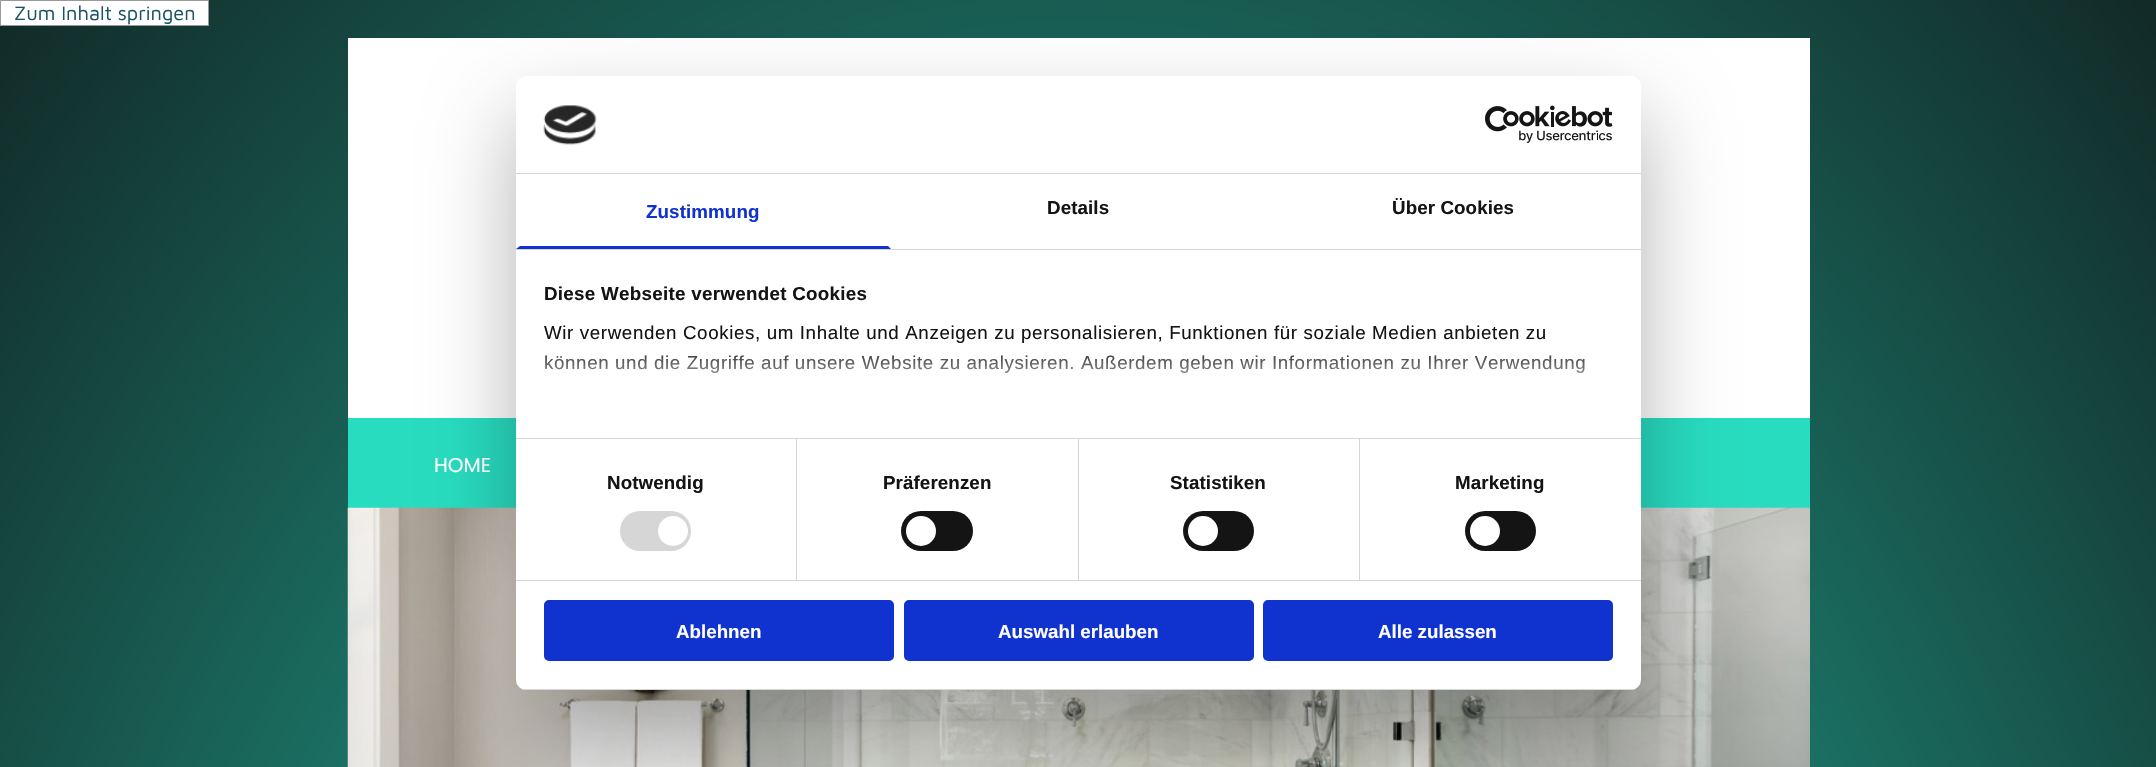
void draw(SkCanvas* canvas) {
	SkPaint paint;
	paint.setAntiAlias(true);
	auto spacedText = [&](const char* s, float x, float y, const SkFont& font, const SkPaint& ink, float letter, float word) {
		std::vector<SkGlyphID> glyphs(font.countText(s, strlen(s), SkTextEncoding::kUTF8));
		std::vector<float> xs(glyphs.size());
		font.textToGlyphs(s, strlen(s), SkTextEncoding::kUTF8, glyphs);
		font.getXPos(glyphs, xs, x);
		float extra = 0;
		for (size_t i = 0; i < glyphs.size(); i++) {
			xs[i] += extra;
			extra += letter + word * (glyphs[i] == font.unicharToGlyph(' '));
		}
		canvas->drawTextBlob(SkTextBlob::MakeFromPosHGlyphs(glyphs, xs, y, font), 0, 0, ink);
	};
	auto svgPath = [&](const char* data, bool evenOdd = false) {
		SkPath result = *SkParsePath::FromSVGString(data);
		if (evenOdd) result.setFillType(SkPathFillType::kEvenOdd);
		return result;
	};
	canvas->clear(0xffffffff);
	{
		const SkColor colors[] = {0xff28d6bb, 0xff122b28};
		const float stops[] = {0, 0.99};
		SkMatrix m = SkMatrix::Translate(1078, 1503).preScale(1525, 2126);
		paint.setShader(SkGradientShader::MakeRadial({0, 0}, 1, colors, stops, 2, SkTileMode::kClamp, 0, &m));
		paint.setAlpha(255);
	}
	canvas->drawRect(SkRect::MakeXYWH(0, 0, 2156, 767), paint);
	paint.setShader(nullptr);
	paint.setColor(0xffffffff);
	canvas->drawRect(SkRect::MakeXYWH(0.5, 0.5, 208, 25), paint);
	paint.setStroke(true);
	paint.setStrokeWidth(1);
	paint.setColor(0xff999999);
	canvas->drawRect(SkRect::MakeXYWH(0.5, 0.5, 208, 25), paint);
	SkFont f1(fontMgr->matchFamilyStyle("Maven Pro", SkFontStyle::Normal()), 20);
	f1.setSubpixel(true);
	paint.setStroke(false);
	paint.setColor(0xff195463);
	canvas->drawString("Zum Inhalt springen", 14, 20, f1, paint);
	paint.setColor(0xffffffff);
	canvas->drawRect(SkRect::MakeXYWH(348, 38, 1462, 380), paint);
	paint.setColor(0xff28dcc0);
	canvas->drawRect(SkRect::MakeXYWH(348, 418, 1462, 90), paint);
	SkFont f2(fontMgr->matchFamilyStyle("Poppins", SkFontStyle::Normal()), 20);
	f2.setSubpixel(true);
	paint.setColor(0xffffffff);
	canvas->drawString("HOME", 434, 472, f2, paint);
	canvas->drawImageRect(SkImages::DeferredFromEncodedData(SkData::MakeFromFileName("img1.png")), SkRect::MakeXYWH(347, 507, 1463, 260), SkSamplingOptions());
	paint.setColor(0x4d000000);
	paint.setMaskFilter(SkMaskFilter::MakeBlur(kNormal_SkBlurStyle, 42.5));
	canvas->drawRoundRect(SkRect::MakeXYWH(516, 116, 1125, 614), 10, 10, paint);
	paint.setMaskFilter(nullptr);
	paint.setColor(0xffffffff);
	canvas->drawRoundRect(SkRect::MakeXYWH(516, 76, 1125, 614), 10, 10, paint);
	paint.setColor(0xffd6d6d6);
	canvas->drawRect(SkRect::MakeXYWH(516, 173, 1125, 1), paint);
	canvas->drawImageRect(SkImages::DeferredFromEncodedData(SkData::MakeFromFileName("img2.png")), SkRect::MakeXYWH(543, 105, 54, 40), SkSamplingOptions());
	canvas->drawImageRect(SkImages::DeferredFromEncodedData(SkData::MakeFromFileName("img3.png")), SkRect::MakeXYWH(1485, 105, 128, 38), SkSamplingOptions());
	canvas->drawRect(SkRect::MakeXYWH(516, 249, 1125, 1), paint);
	paint.setColor(0xff1032cf);
	canvas->drawPath(svgPath("M891 249H516L520 246H888Z"), paint);
	SkFont f3(fontMgr->matchFamilyStyle("Liberation Sans", SkFontStyle::Bold()), 18.75);
	f3.setSubpixel(true);
	spacedText("Zustimmung", 646, 218, f3, paint, 0.1, 0);
	paint.setColor(0xff141414);
	spacedText("Details", 1047, 214, f3, paint, 0.1, 0);
	spacedText("Über Cookies", 1392, 214, f3, paint, 0.1, 0);
	paint.setColor(0xffd6d6d6);
	canvas->drawRect(SkRect::MakeXYWH(516, 438, 1125, 1), paint);
	paint.setColor(0xff141414);
	spacedText("Diese Webseite verwendet Cookies", 544, 300, f3, paint, 0.3, 0);
	SkFont f4(fontMgr->matchFamilyStyle("Liberation Sans", SkFontStyle::Normal()), 18.75);
	f4.setSubpixel(true);
	spacedText("Wir verwenden Cookies, um Inhalte und Anzeigen zu personalisieren, Funktionen für soziale Medien anbieten zu", 544, 339, f4, paint, 0.62, 0);
	spacedText("können und die Zugriffe auf unsere Website zu analysieren. Außerdem geben wir Informationen zu Ihrer Verwendung", 544, 369, f4, paint, 0.62, 0);
	{
		const SkColor colors[] = {0xffffffff, 0xccffffff, 0x00ffffff};
		const float stops[] = {0, 0.5, 1};
		const SkPoint ends[] = {{1066, 438}, {1066, 344}};
		paint.setShader(SkGradientShader::MakeLinear(ends, colors, stops, 3, SkTileMode::kClamp));
		paint.setAlpha(255);
	}
	canvas->drawRect(SkRect::MakeXYWH(545, 355, 1040, 18), paint);
	paint.setShader(nullptr);
	paint.setColor(0xffd6d6d6);
	canvas->drawRect(SkRect::MakeXYWH(516, 580, 1125, 1), paint);
	canvas->drawRect(SkRect::MakeXYWH(796, 439, 1, 141), paint);
	paint.setColor(0xff141414);
	spacedText("Notwendig", 607, 489, f3, paint, 0.1, 0);
	paint.setColor(0xffd6d6d6);
	canvas->drawRoundRect(SkRect::MakeXYWH(620, 511, 71, 40), 20, 20, paint);
	paint.setColor(0xffffffff);
	canvas->drawCircle(673, 531, 15, paint);
	paint.setColor(0xffd6d6d6);
	canvas->drawRect(SkRect::MakeXYWH(1078, 439, 1, 141), paint);
	paint.setColor(0xff141414);
	spacedText("Präferenzen", 883, 489, f3, paint, 0.1, 0);
	canvas->drawRoundRect(SkRect::MakeXYWH(901, 511, 72, 40), 20, 20, paint);
	paint.setColor(0xffffffff);
	canvas->drawCircle(921, 531, 15, paint);
	paint.setColor(0xffd6d6d6);
	canvas->drawRect(SkRect::MakeXYWH(1359, 439, 1, 141), paint);
	paint.setColor(0xff141414);
	spacedText("Statistiken", 1170, 489, f3, paint, 0.1, 0);
	canvas->drawRoundRect(SkRect::MakeXYWH(1183, 511, 71, 40), 20, 20, paint);
	paint.setColor(0xffffffff);
	canvas->drawCircle(1203, 531, 15, paint);
	paint.setColor(0xff141414);
	spacedText("Marketing", 1455, 489, f3, paint, 0.1, 0);
	canvas->drawRoundRect(SkRect::MakeXYWH(1465, 511, 71, 40), 20, 20, paint);
	paint.setColor(0xffffffff);
	canvas->drawCircle(1485, 531, 15, paint);
	canvas->save();
	canvas->clipPath(svgPath("M526 76H1631C1636.5 76 1641 80.5 1641 86V680C1641 685.5 1636.5 690 1631 690H526C520.5 690 516 685.5 516 680V86C516 80.5 520.5 76 526 76Z"), true);
	paint.setColor(0xffd6d6d6);
	canvas->drawRect(SkRect::MakeXYWH(516, 689, 1125, 1), paint);
	canvas->restore();
	paint.setColor(0xff1032cf);
	canvas->drawRoundRect(SkRect::MakeXYWH(545.5, 601.5, 347, 58), 3.5, 3.5, paint);
	paint.setStroke(true);
	paint.setStrokeWidth(3);
	canvas->drawRoundRect(SkRect::MakeXYWH(545.5, 601.5, 347, 58), 3.5, 3.5, paint);
	paint.setStroke(false);
	paint.setColor(0xffffffff);
	canvas->drawString("Ablehnen", 676, 638, f3, paint);
	paint.setColor(0xff1032cf);
	canvas->drawRoundRect(SkRect::MakeXYWH(905.5, 601.5, 347, 58), 3.5, 3.5, paint);
	paint.setStroke(true);
	canvas->drawRoundRect(SkRect::MakeXYWH(905.5, 601.5, 347, 58), 3.5, 3.5, paint);
	paint.setStroke(false);
	paint.setColor(0xffffffff);
	canvas->drawString("Auswahl erlauben", 998, 638, f3, paint);
	paint.setColor(0xff1032cf);
	canvas->drawRoundRect(SkRect::MakeXYWH(1264.5, 601.5, 347, 58), 3.5, 3.5, paint);
	paint.setStroke(true);
	canvas->drawRoundRect(SkRect::MakeXYWH(1264.5, 601.5, 347, 58), 3.5, 3.5, paint);
	paint.setStroke(false);
	paint.setColor(0xffffffff);
	canvas->drawString("Alle zulassen", 1378, 638, f3, paint);
}
